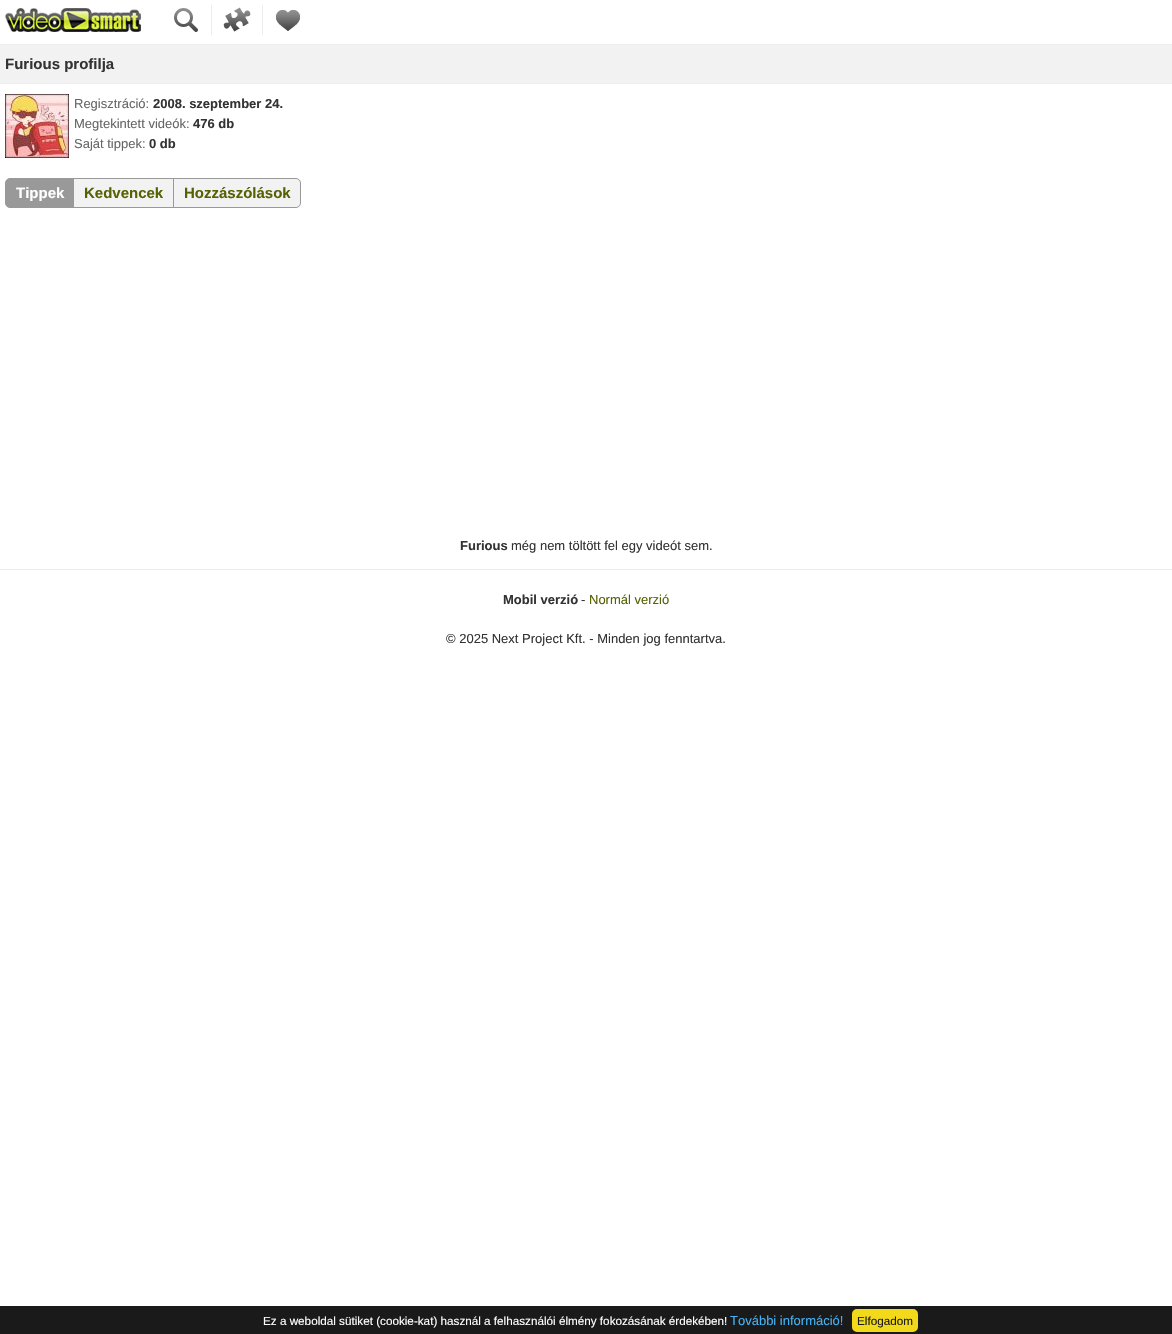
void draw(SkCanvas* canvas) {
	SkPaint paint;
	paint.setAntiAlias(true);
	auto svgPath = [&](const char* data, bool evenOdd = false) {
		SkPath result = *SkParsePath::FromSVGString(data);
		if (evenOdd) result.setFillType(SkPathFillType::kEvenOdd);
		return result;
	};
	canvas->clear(0xffffffff);
	paint.setColor(0xffededed);
	canvas->drawRect(SkRect::MakeXYWH(0, 44, 1172, 1), paint);
	canvas->drawImageRect(SkImages::DeferredFromEncodedData(SkData::MakeFromFileName("img1.png")), SkRect::MakeXYWH(5, 8, 136, 24), SkSamplingOptions());
	canvas->drawImageRect(SkImages::DeferredFromEncodedData(SkData::MakeFromFileName("img2.png")), SkRect::MakeXYWH(174, 8, 24, 24), SkSamplingOptions());
	canvas->drawRect(SkRect::MakeXYWH(211, 5, 1, 30), paint);
	canvas->drawImageRect(SkImages::DeferredFromEncodedData(SkData::MakeFromFileName("img3.png")), SkRect::MakeXYWH(223, 7, 28, 25), SkSamplingOptions());
	canvas->drawRect(SkRect::MakeXYWH(262, 5, 1, 30), paint);
	canvas->drawImageRect(SkImages::DeferredFromEncodedData(SkData::MakeFromFileName("img4.png")), SkRect::MakeXYWH(276, 10, 24, 21), SkSamplingOptions());
	paint.setColor(0xfff2f2f2);
	canvas->drawRect(SkRect::MakeXYWH(0, 45, 1172, 38), paint);
	paint.setColor(0xffededed);
	canvas->drawRect(SkRect::MakeXYWH(0, 83, 1172, 1), paint);
	SkFont f1(fontMgr->matchFamilyStyle("Liberation Sans", SkFontStyle::Bold()), 15);
	f1.setSubpixel(true);
	paint.setColor(0xff333333);
	canvas->drawString("Furious profilja", 5, 69, f1, paint);
	canvas->drawImageRect(SkImages::DeferredFromEncodedData(SkData::MakeFromFileName("img5.png")), SkRect::MakeXYWH(5, 94, 64, 64), SkSamplingOptions());
	SkFont f2(fontMgr->matchFamilyStyle("Liberation Sans", SkFontStyle::Normal()), 13);
	f2.setSubpixel(true);
	paint.setColor(0xff666666);
	canvas->drawString("Regisztráció:", 74, 108, f2, paint);
	SkFont f3(fontMgr->matchFamilyStyle("Liberation Sans", SkFontStyle::Bold()), 13);
	f3.setSubpixel(true);
	paint.setColor(0xff333333);
	canvas->drawString("2008. szeptember 24.", 153, 108, f3, paint);
	paint.setColor(0xff666666);
	canvas->drawString("Megtekintett videók:", 74, 128, f2, paint);
	paint.setColor(0xff333333);
	canvas->drawString("476 db", 193, 128, f3, paint);
	paint.setColor(0xff666666);
	canvas->drawString("Saját tippek:", 74, 148, f2, paint);
	paint.setColor(0xff333333);
	canvas->drawString("0 db", 149, 148, f3, paint);
	paint.setColor(0xff999999);
	canvas->drawPath(svgPath("M10 178.5H74.5V207.5H10C7.5 207.5 5.5 205.5 5.5 203V183C5.5 180.5 7.5 178.5 10 178.5Z"), paint);
	paint.setStroke(true);
	paint.setStrokeWidth(1);
	canvas->drawPath(svgPath("M10 178.5H74.5V207.5H10C7.5 207.5 5.5 205.5 5.5 203V183C5.5 180.5 7.5 178.5 10 178.5Z"), paint);
	paint.setStroke(false);
	paint.setColor(0xffffffff);
	canvas->drawString("Tippek", 16, 198, f1, paint);
	paint.setColor(0xfff2f2f2);
	canvas->drawRect(SkRect::MakeXYWH(74, 179, 99, 28), paint);
	paint.setStroke(true);
	paint.setColor(0xff999999);
	canvas->drawRect(SkRect::MakeXYWH(73.5, 178.5, 101, 29), paint);
	paint.setStroke(false);
	paint.setColor(0xff566102);
	canvas->drawString("Kedvencek", 84, 198, f1, paint);
	paint.setColor(0xfff2f2f2);
	canvas->drawPath(svgPath("M173.5 178.5H296C298.5 178.5 300.5 180.5 300.5 183V203C300.5 205.5 298.5 207.5 296 207.5H173.5Z"), paint);
	paint.setStroke(true);
	paint.setColor(0xff999999);
	canvas->drawPath(svgPath("M173.5 178.5H296C298.5 178.5 300.5 180.5 300.5 183V203C300.5 205.5 298.5 207.5 296 207.5H173.5Z"), paint);
	paint.setStroke(false);
	paint.setColor(0xff566102);
	canvas->drawString("Hozzászólások", 184, 198, f1, paint);
	paint.setColor(0xff333333);
	canvas->drawString("Furious", 460, 550, f3, paint);
	canvas->drawString("még nem töltött fel egy videót sem.", 511, 550, f2, paint);
	paint.setColor(0xffededed);
	canvas->drawRect(SkRect::MakeXYWH(0, 569, 1172, 1), paint);
	paint.setColor(0xff333333);
	canvas->drawString("Mobil verzió", 503, 604, f3, paint);
	canvas->drawString("-", 581, 604, f2, paint);
	paint.setColor(0xff566102);
	canvas->drawString("Normál verzió", 589, 604, f2, paint);
	paint.setColor(0xff333333);
	canvas->drawString("© 2025 Next Project Kft. - Minden jog fenntartva.", 446, 643, f2, paint);
	paint.setColor(0xff1a1a1a);
	canvas->drawRect(SkRect::MakeXYWH(0, 1306, 1172, 28), paint);
	SkFont f4(fontMgr->matchFamilyStyle("Liberation Sans", SkFontStyle::Normal()), 11.7);
	f4.setSubpixel(true);
	paint.setColor(0xffffffff);
	canvas->drawString("Ez a weboldal sütiket (cookie-kat) használ a felhasználói élmény fokozásának érdekében!", 263, 1325, f4, paint);
	paint.setColor(0xff46b1f2);
	canvas->drawString("További információ!", 730, 1325, f2, paint);
	paint.setColor(0xfff2da1a);
	canvas->drawRoundRect(SkRect::MakeXYWH(853, 1310, 64, 21), 4, 4, paint);
	paint.setStroke(true);
	paint.setStrokeWidth(2);
	canvas->drawRoundRect(SkRect::MakeXYWH(853, 1310, 64, 21), 4, 4, paint);
	paint.setStroke(false);
	paint.setColor(0xff1a1a1a);
	canvas->drawString("Elfogadom", 857, 1325, f4, paint);
}
